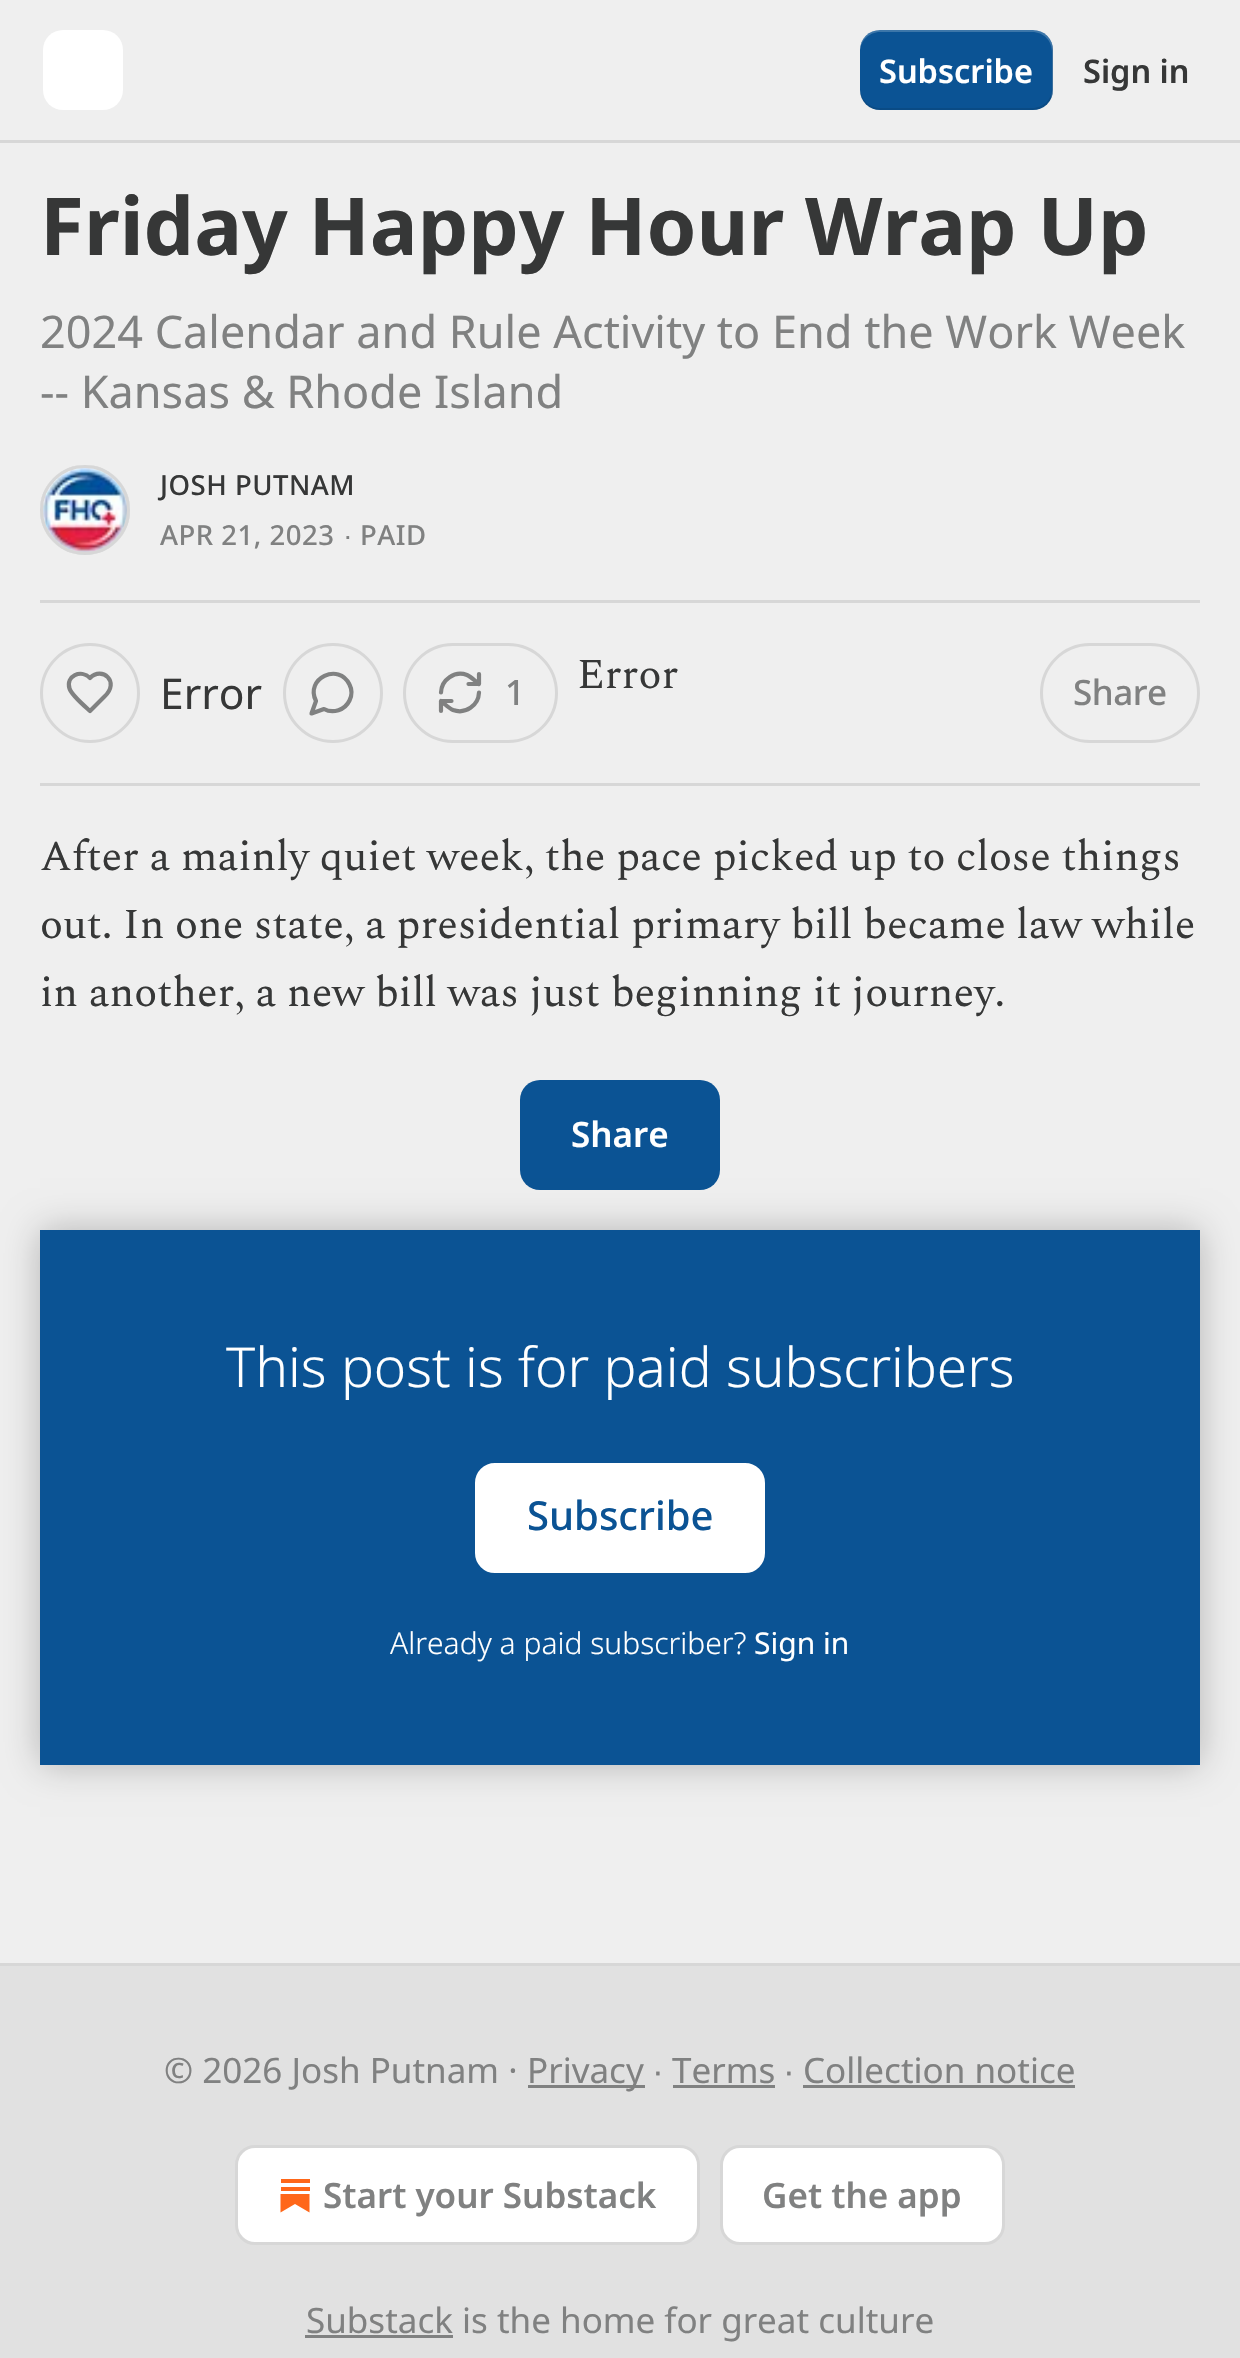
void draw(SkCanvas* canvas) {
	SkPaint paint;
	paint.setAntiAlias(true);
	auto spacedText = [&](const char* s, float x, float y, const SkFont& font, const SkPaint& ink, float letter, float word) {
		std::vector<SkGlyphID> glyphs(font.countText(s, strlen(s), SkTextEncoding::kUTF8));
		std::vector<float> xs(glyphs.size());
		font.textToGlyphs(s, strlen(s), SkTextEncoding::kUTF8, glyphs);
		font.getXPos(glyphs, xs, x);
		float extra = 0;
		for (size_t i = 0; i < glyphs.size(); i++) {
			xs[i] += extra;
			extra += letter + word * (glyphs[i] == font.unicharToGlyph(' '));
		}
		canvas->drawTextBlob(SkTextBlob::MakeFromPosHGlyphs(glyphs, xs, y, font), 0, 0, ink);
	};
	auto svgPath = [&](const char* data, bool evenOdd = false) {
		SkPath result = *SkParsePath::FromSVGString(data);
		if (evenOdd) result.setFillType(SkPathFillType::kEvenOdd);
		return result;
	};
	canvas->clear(0xffefefef);
	paint.setColor(0xffd7d7d7);
	canvas->drawRect(SkRect::MakeXYWH(0, 140, 1240, 3), paint);
	paint.setColor(0xffffffff);
	canvas->drawRoundRect(SkRect::MakeXYWH(43, 30, 80, 80), 20, 20, paint);
	paint.setColor(0xff0b5394);
	canvas->drawRoundRect(SkRect::MakeXYWH(860, 30, 193, 80), 20, 20, paint);
	paint.setColor(0x1a000000);
	canvas->drawPath(svgPath("M860 88V90C860 101 869 110 880 110H1033C1044 110 1053 101 1053 90V50C1053 47 1052 44 1051 42L1052 48V88C1052 99 1044 108 1032 108H880C869 108 860 99 860 88Z"), paint);
	paint.setColor(0x33ffffff);
	canvas->drawPath(svgPath("M880 32H1032C1044 32 1052 41 1052 52V92L1051 98C1052 96 1053 93 1053 90V50C1053 39 1044 30 1033 30H880C869 30 860 39 860 50V52C860 41 869 32 880 32Z"), paint);
	SkFont f1(fontMgr->matchFamilyStyle("Noto Sans", SkFontStyle(600, SkFontStyle::kNormal_Width, SkFontStyle::kUpright_Slant)), 32.5);
	f1.setSubpixel(true);
	paint.setColor(0xffffffff);
	canvas->drawString("Subscribe", 879, 83, f1, paint);
	paint.setColor(0xff363737);
	canvas->drawString("Sign in", 1083, 83, f1, paint);
	SkFont f2(fontMgr->matchFamilyStyle("Noto Sans", SkFontStyle::Bold()), 80);
	f2.setSubpixel(true);
	canvas->drawString("Friday Happy Hour Wrap Up", 40, 255, f2, paint);
	SkFont f3(fontMgr->matchFamilyStyle("Noto Sans", SkFontStyle::Normal()), 45);
	f3.setSubpixel(true);
	paint.setColor(0xff808181);
	canvas->drawString("2024 Calendar and Rule Activity to End the Work Week", 40, 348, f3, paint);
	canvas->drawString("-- Kansas & Rhode Island", 40, 408, f3, paint);
	paint.setStroke(true);
	paint.setStrokeWidth(3);
	paint.setColor(0xffd7d7d7);
	canvas->drawCircle(85, 510, 43.5, paint);
	canvas->drawImageRect(SkImages::DeferredFromEncodedData(SkData::MakeFromFileName("img1.png")), SkRect::MakeXYWH(40, 465, 90, 90), SkSamplingOptions());
	canvas->drawCircle(85, 510, 43.5, paint);
	SkFont f4(fontMgr->matchFamilyStyle("Noto Sans", SkFontStyle(500, SkFontStyle::kNormal_Width, SkFontStyle::kUpright_Slant)), 27.5);
	f4.setSubpixel(true);
	paint.setStroke(false);
	paint.setColor(0xff363737);
	spacedText("JOSH PUTNAM", 160, 495, f4, paint, 0.5, 0);
	paint.setColor(0xff808181);
	spacedText("APR 21, 2023", 160, 545, f4, paint, 0.5, 0);
	SkFont f5(fontMgr->matchFamilyStyle("Liberation Sans", SkFontStyle::Normal()), 27.5);
	f5.setSubpixel(true);
	spacedText("∙", 344, 545, f5, paint, 0.5, 0);
	spacedText("PAID", 360, 545, f4, paint, 0.5, 0);
	paint.setColor(0xffd7d7d7);
	canvas->drawRect(SkRect::MakeXYWH(40, 600, 1160, 3), paint);
	canvas->drawRect(SkRect::MakeXYWH(40, 783, 1160, 3), paint);
	paint.setStroke(true);
	canvas->drawCircle(333, 693, 48.5, paint);
	paint.setStrokeWidth(4.2);
	paint.setStrokeCap(SkPaint::kRound_Cap);
	paint.setStrokeJoin(SkPaint::kRound_Join);
	paint.setColor(0xff808181);
	canvas->drawPath(svgPath("M324 709C333 714 345 710 349.5 700.5C352 695.5 352 689.5 349.5 684.5C339 662 304.5 678.5 316 701L311.5 713.5Z"), paint);
	SkFont f6(fontMgr->matchFamilyStyle("Spectral", SkFontStyle::Normal()), 42.5);
	f6.setSubpixel(true);
	paint.setStroke(false);
	paint.setColor(0xff363737);
	canvas->drawString("Error", 577, 688, f6, paint);
	paint.setStroke(true);
	paint.setStrokeWidth(3);
	paint.setStrokeCap(SkPaint::kButt_Cap);
	paint.setStrokeJoin(SkPaint::kMiter_Join);
	paint.setColor(0xffd7d7d7);
	canvas->drawCircle(90, 693, 48.5, paint);
	paint.setStrokeWidth(4.2);
	paint.setStrokeCap(SkPaint::kRound_Cap);
	paint.setStrokeJoin(SkPaint::kRound_Join);
	paint.setColor(0xff808181);
	canvas->drawPath(svgPath("M104.5 696.5C120.5 681.5 102 666 90 678C81 669 65.5 676 69.5 688.5C71.5 695 85 706.5 90 711Z"), paint);
	SkFont f7(fontMgr->matchFamilyStyle("Noto Sans", SkFontStyle::Normal()), 42.5);
	f7.setSubpixel(true);
	paint.setStroke(false);
	paint.setColor(0xff363737);
	canvas->drawString("Error", 160, 709, f7, paint);
	paint.setStroke(true);
	paint.setStrokeWidth(3);
	paint.setStrokeCap(SkPaint::kButt_Cap);
	paint.setStrokeJoin(SkPaint::kMiter_Join);
	paint.setColor(0xffd7d7d7);
	canvas->drawRoundRect(SkRect::MakeXYWH(404.5, 644.5, 152, 97), 48.5, 48.5, paint);
	paint.setStrokeWidth(4.2);
	paint.setStrokeCap(SkPaint::kRound_Cap);
	paint.setStrokeJoin(SkPaint::kRound_Join);
	paint.setColor(0xff808181);
	canvas->drawPath(svgPath("M479 674V684M479 684H468.5M479 684C475 681 471.5 677 467 675C454.5 670.5 441.5 679.5 441 692.5M441 711V701M441 701H451.5M441 701C445 704 448.5 708 453 710C465.5 714.5 478.5 705.5 479 692.5"), paint);
	SkFont f8(fontMgr->matchFamilyStyle("Noto Sans", SkFontStyle(500, SkFontStyle::kNormal_Width, SkFontStyle::kUpright_Slant)), 35);
	f8.setSubpixel(true);
	paint.setStroke(false);
	spacedText("1", 505, 705, f8, paint, -0.5, 0);
	paint.setStroke(true);
	paint.setStrokeWidth(3);
	paint.setStrokeCap(SkPaint::kButt_Cap);
	paint.setStrokeJoin(SkPaint::kMiter_Join);
	paint.setColor(0xffd7d7d7);
	canvas->drawRoundRect(SkRect::MakeXYWH(1041.5, 644.5, 157, 97), 48.5, 48.5, paint);
	paint.setStroke(false);
	paint.setColor(0xff808181);
	spacedText("Share", 1073, 705, f8, paint, -0.5, 0);
	paint.setColor(0xff363737);
	canvas->drawString("After a mainly quiet week, the pace picked up to close things", 40, 870, f6, paint);
	canvas->drawString("out. In one state, a presidential primary bill became law while", 40, 938, f6, paint);
	canvas->drawString("in another, a new bill was just beginning it journey.", 40, 1006, f6, paint);
	paint.setColor(0xff0b5394);
	canvas->drawRoundRect(SkRect::MakeXYWH(520, 1080, 200, 110), 20, 20, paint);
	SkFont f9(fontMgr->matchFamilyStyle("Noto Sans", SkFontStyle(600, SkFontStyle::kNormal_Width, SkFontStyle::kUpright_Slant)), 35);
	f9.setSubpixel(true);
	paint.setColor(0xffffffff);
	canvas->drawString("Share", 571, 1147, f9, paint);
	paint.setColor(0xff0b5394);
	canvas->drawRect(SkRect::MakeXYWH(40, 1230, 1160, 535), paint);
	paint.setColor(0xffffffff);
	canvas->drawRoundRect(SkRect::MakeXYWH(476.5, 1464.5, 287, 107), 18.5, 18.5, paint);
	paint.setStroke(true);
	canvas->drawRoundRect(SkRect::MakeXYWH(476.5, 1464.5, 287, 107), 18.5, 18.5, paint);
	canvas->save();
	canvas->clipPath(svgPath("M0 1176H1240V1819H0ZM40 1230H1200V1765H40Z", true), true);
	paint.setStroke(false);
	paint.setColor(0x40000000);
	paint.setMaskFilter(SkMaskFilter::MakeBlur(kNormal_SkBlurStyle, 17.5));
	canvas->drawRect(SkRect::MakeXYWH(40, 1230, 1160, 535), paint);
	paint.setMaskFilter(nullptr);
	canvas->restore();
	SkFont f10(fontMgr->matchFamilyStyle("Noto Sans", SkFontStyle(300, SkFontStyle::kNormal_Width, SkFontStyle::kUpright_Slant)), 55);
	f10.setSubpixel(true);
	paint.setColor(0xffffffff);
	canvas->drawString("This post is for paid subscribers", 226, 1387, f10, paint);
	SkFont f11(fontMgr->matchFamilyStyle("Noto Sans", SkFontStyle(500, SkFontStyle::kNormal_Width, SkFontStyle::kUpright_Slant)), 40);
	f11.setSubpixel(true);
	paint.setColor(0xff0b5394);
	canvas->drawString("Subscribe", 527, 1530, f11, paint);
	SkFont f12(fontMgr->matchFamilyStyle("Noto Sans", SkFontStyle(300, SkFontStyle::kNormal_Width, SkFontStyle::kUpright_Slant)), 30);
	f12.setSubpixel(true);
	paint.setColor(0xffffffff);
	canvas->drawString("Already a paid subscriber?", 390, 1654, f12, paint);
	SkFont f13(fontMgr->matchFamilyStyle("Noto Sans", SkFontStyle::Normal()), 30);
	f13.setSubpixel(true);
	canvas->drawString("Sign in", 754, 1654, f13, paint);
	paint.setColor(0xffe1e1e1);
	canvas->drawRect(SkRect::MakeXYWH(0, 1966, 1240, 392), paint);
	paint.setColor(0xffd7d7d7);
	canvas->drawRect(SkRect::MakeXYWH(0, 1963, 1240, 3), paint);
	SkFont f14(fontMgr->matchFamilyStyle("Noto Sans", SkFontStyle::Normal()), 35);
	f14.setSubpixel(true);
	paint.setColor(0xff808181);
	canvas->drawString("© 2026 Josh Putnam ·", 164, 2083, f14, paint);
	canvas->drawRect(SkRect::MakeXYWH(528, 2085, 117, 3), paint);
	canvas->drawString("Privacy", 527, 2083, f14, paint);
	SkFont f15(fontMgr->matchFamilyStyle("Liberation Sans", SkFontStyle::Normal()), 35);
	f15.setSubpixel(true);
	canvas->drawString("∙", 653, 2083, f15, paint);
	canvas->drawString("Terms", 672, 2083, f14, paint);
	canvas->drawRect(SkRect::MakeXYWH(673, 2085, 102, 3), paint);
	canvas->drawString("∙", 784, 2083, f15, paint);
	canvas->drawString("Collection notice", 803, 2083, f14, paint);
	canvas->drawRect(SkRect::MakeXYWH(803, 2085, 272, 3), paint);
	paint.setColor(0xffffffff);
	canvas->drawRoundRect(SkRect::MakeXYWH(236.5, 2146.5, 462, 97), 18.5, 18.5, paint);
	paint.setStroke(true);
	paint.setColor(0xffd7d7d7);
	canvas->drawRoundRect(SkRect::MakeXYWH(236.5, 2146.5, 462, 97), 18.5, 18.5, paint);
	paint.setStroke(false);
	paint.setColor(0xffff6719);
	canvas->drawRect(SkRect::MakeXYWH(281, 2187, 29, 4), paint);
	canvas->drawPath(svgPath("M280.5 2194V2212.5L295 2204L309.5 2212.5V2194Z"), paint);
	canvas->drawRect(SkRect::MakeXYWH(281, 2179, 29, 4), paint);
	paint.setColor(0xff808181);
	canvas->drawString("Start your Substack", 323, 2208, f9, paint);
	paint.setColor(0xffffffff);
	canvas->drawRoundRect(SkRect::MakeXYWH(721.5, 2146.5, 282, 97), 18.5, 18.5, paint);
	paint.setStroke(true);
	paint.setColor(0xffd7d7d7);
	canvas->drawRoundRect(SkRect::MakeXYWH(721.5, 2146.5, 282, 97), 18.5, 18.5, paint);
	paint.setStroke(false);
	paint.setColor(0xff808181);
	canvas->drawString("Get the app", 762, 2208, f9, paint);
	canvas->drawRect(SkRect::MakeXYWH(305, 2335, 148, 3), paint);
	canvas->drawString("Substack is the home for great culture", 306, 2333, f14, paint);
}
